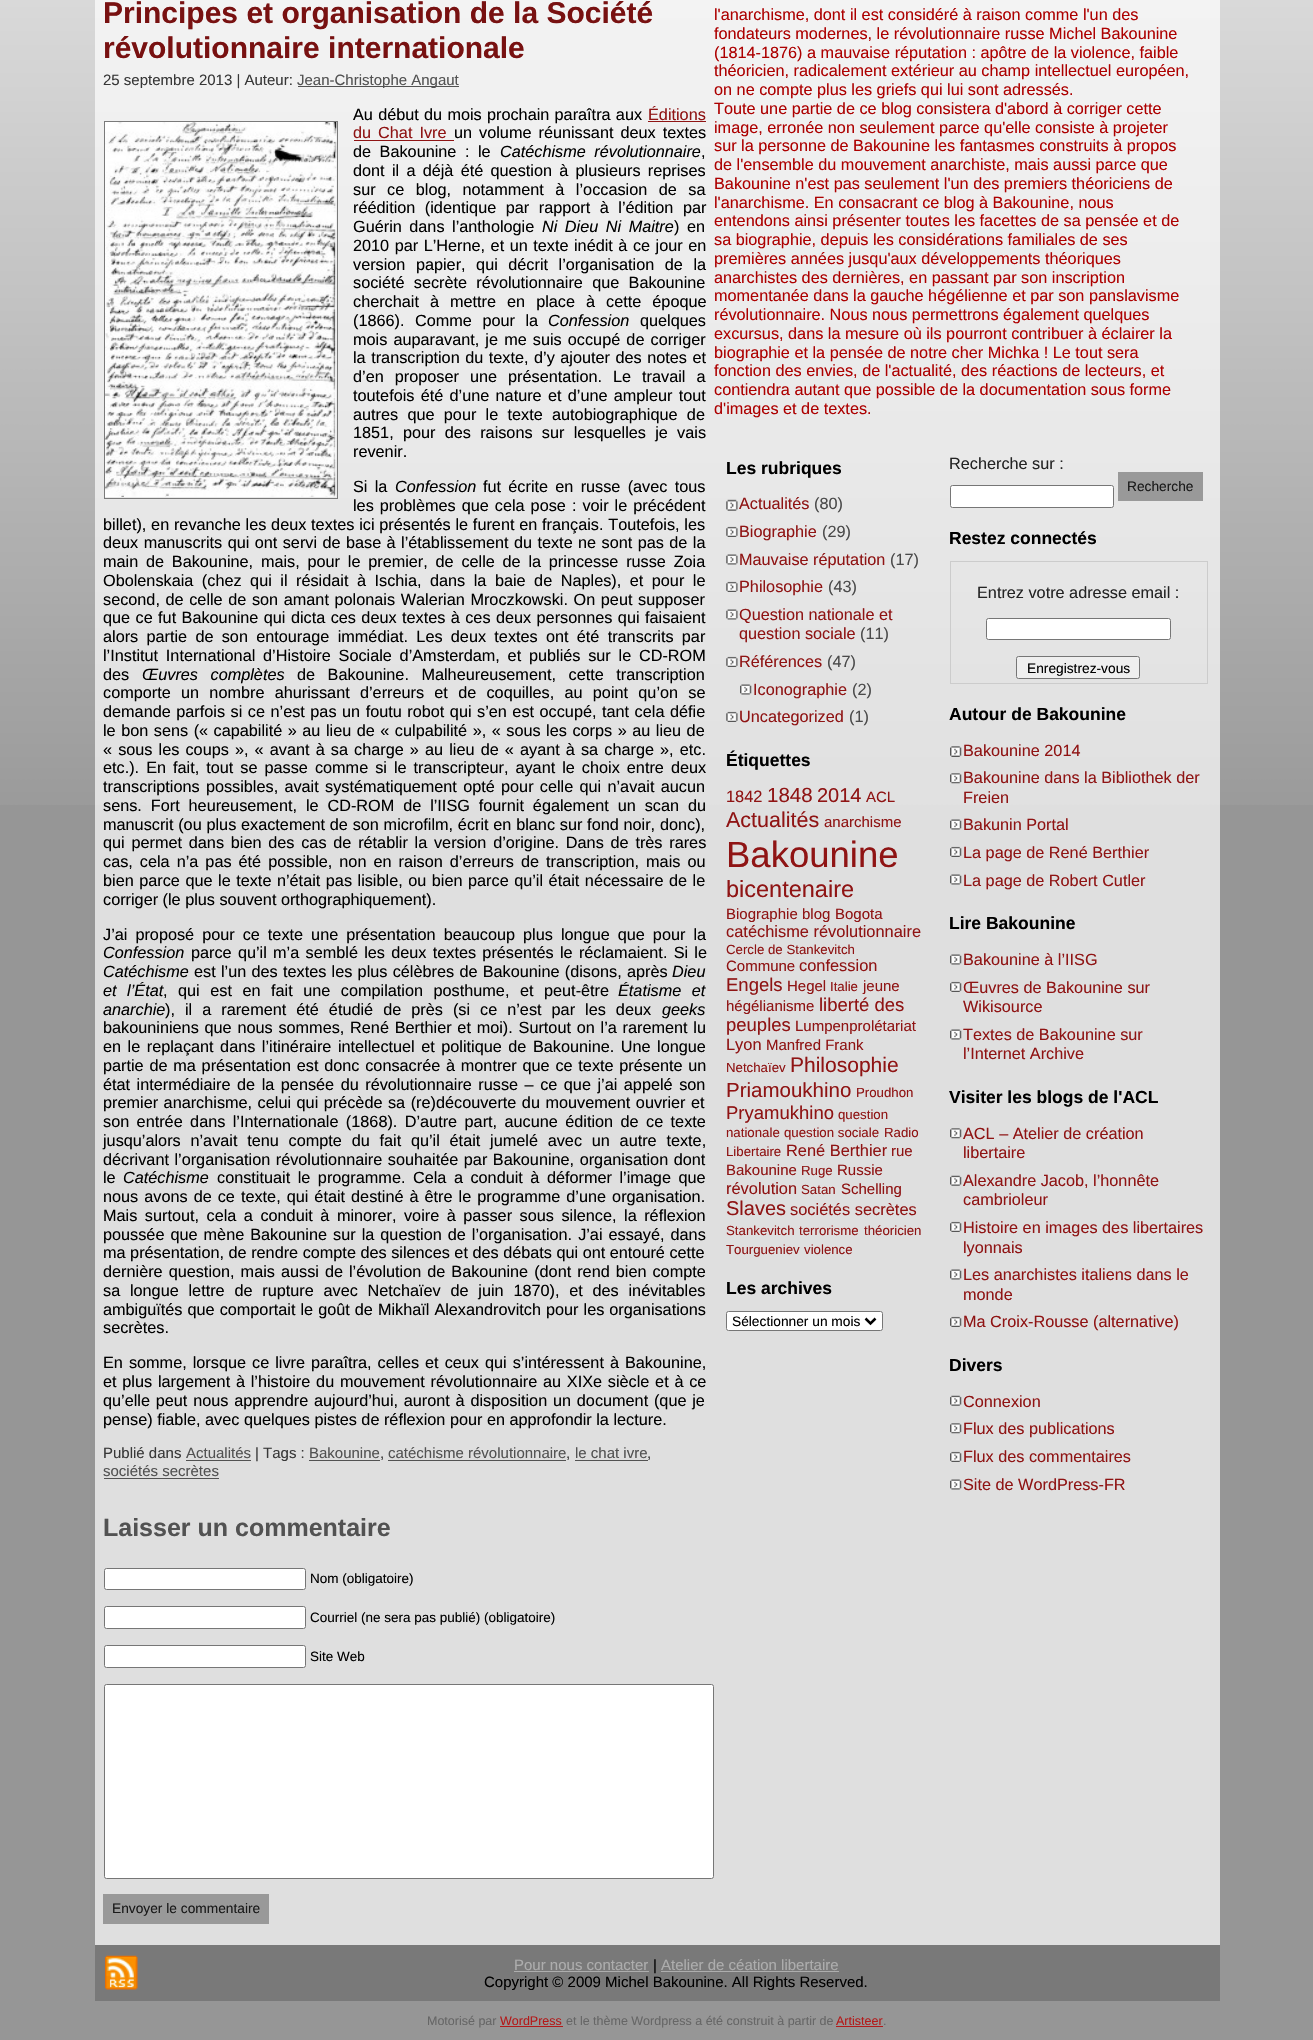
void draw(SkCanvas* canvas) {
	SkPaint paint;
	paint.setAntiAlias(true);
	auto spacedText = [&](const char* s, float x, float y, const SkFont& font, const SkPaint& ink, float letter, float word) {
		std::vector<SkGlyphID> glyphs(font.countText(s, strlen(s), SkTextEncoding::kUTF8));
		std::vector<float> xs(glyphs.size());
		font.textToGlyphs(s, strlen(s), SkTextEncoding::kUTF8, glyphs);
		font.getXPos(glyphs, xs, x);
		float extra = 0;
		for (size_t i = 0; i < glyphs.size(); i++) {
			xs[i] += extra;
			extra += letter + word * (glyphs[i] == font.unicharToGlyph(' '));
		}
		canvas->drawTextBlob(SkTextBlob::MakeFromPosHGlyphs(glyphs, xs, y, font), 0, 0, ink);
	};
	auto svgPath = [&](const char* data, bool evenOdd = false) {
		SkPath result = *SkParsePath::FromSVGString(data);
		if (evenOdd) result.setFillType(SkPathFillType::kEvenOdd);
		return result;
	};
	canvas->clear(0xff969696);
	canvas->drawImageRect(SkImages::DeferredFromEncodedData(SkData::MakeFromFileName("img1.png")), SkRect::MakeXYWH(0, 0, 1313, 805), SkSamplingOptions());
	paint.setColor(0xb3fefefe);
	canvas->drawRect(SkRect::MakeXYWH(95, 0, 1125, 1945), paint);
	SkFont f1(fontMgr->matchFamilyStyle("Liberation Sans", SkFontStyle::Bold()), 30);
	f1.setSubpixel(true);
	paint.setColor(0xff781111);
	canvas->drawString("Principes et organisation de la Société", 103, 23, f1, paint);
	canvas->drawString("révolutionnaire internationale", 103, 58, f1, paint);
	SkFont f2(fontMgr->matchFamilyStyle("Liberation Sans", SkFontStyle::Normal()), 15);
	f2.setSubpixel(true);
	paint.setColor(0xff383838);
	canvas->drawString("25 septembre 2013 | Auteur:", 103, 85, f2, paint);
	paint.setColor(0xff525252);
	canvas->drawRect(SkRect::MakeXYWH(298, 86, 161, 1), paint);
	canvas->drawString("Jean-Christophe Angaut", 297, 85, f2, paint);
	SkFont f3(fontMgr->matchFamilyStyle("Liberation Sans", SkFontStyle::Normal()), 16.25);
	f3.setSubpixel(true);
	paint.setColor(0xff000000);
	spacedText("Au début du mois prochain paraîtra aux", 353, 120, f3, paint, 0, 0.75);
	paint.setColor(0xff8f1414);
	canvas->drawString("Éditions", 648, 120, f3, paint);
	canvas->drawRect(SkRect::MakeXYWH(648, 121, 58, 1), paint);
	paint.setStroke(true);
	paint.setStrokeWidth(1);
	paint.setColor(0xff7a7a7a);
	canvas->drawRect(SkRect::MakeXYWH(104.5, 121.5, 233, 377), paint);
	canvas->drawImageRect(SkImages::DeferredFromEncodedData(SkData::MakeFromFileName("img2.png")), SkRect::MakeXYWH(105, 122, 232, 375), SkSamplingOptions());
	paint.setStroke(false);
	paint.setColor(0xff8f1414);
	spacedText("du Chat Ivre", 353, 138, f3, paint, 0, 2.5);
	canvas->drawRect(SkRect::MakeXYWH(354, 140, 100, 1), paint);
	paint.setColor(0xff000000);
	spacedText("un volume réunissant deux textes", 454, 138, f3, paint, 0, 2.5);
	spacedText("de Bakounine : le", 353, 157, f3, paint, 0, 4);
	SkFont f4(fontMgr->matchFamilyStyle("Liberation Sans", SkFontStyle::Italic()), 16.25);
	f4.setSubpixel(true);
	spacedText("Catéchisme révolutionnaire", 500, 157, f4, paint, 0, 4);
	canvas->drawString(",", 701, 157, f3, paint);
	spacedText("dont il a déjà été question à plusieurs reprises", 353, 176, f3, paint, 0, 2.75);
	spacedText("sur ce blog, notamment à l’occasion de sa", 353, 195, f3, paint, 0, 7);
	spacedText("réédition (identique par rapport à l’édition par", 353, 213, f3, paint, 0, 5);
	spacedText("Guérin dans l’anthologie", 353, 232, f3, paint, 0, 3);
	spacedText("Ni Dieu Ni Maitre", 542, 232, f4, paint, 0, 3);
	spacedText(") en", 674, 232, f3, paint, 0, 3);
	spacedText("2010 par L’Herne, et un texte inédit à ce jour en", 353, 251, f3, paint, 0, 1);
	spacedText("version papier, qui décrit l’organisation de la", 353, 270, f3, paint, 0, 6);
	spacedText("société secrète révolutionnaire que Bakounine", 353, 288, f3, paint, 0, 4.75);
	spacedText("cherchait à mettre en place à cette époque", 353, 307, f3, paint, 0, 6.5);
	spacedText("(1866). Comme pour la", 353, 326, f3, paint, 0, 6);
	canvas->drawString("Confession", 548, 326, f4, paint);
	canvas->drawString("quelques", 640, 326, f3, paint);
	spacedText("mois auparavant, je me suis occupé de corriger", 353, 345, f3, paint, 0, 1.6);
	spacedText("la transcription du texte, d’y ajouter des notes et", 353, 363, f3, paint, 0, 1);
	spacedText("d’en proposer une présentation. Le travail a", 353, 382, f3, paint, 0, 6.5);
	spacedText("toutefois été d’une nature et d’une ampleur tout", 353, 401, f3, paint, 0, 1.75);
	spacedText("autres que pour le texte autobiographique de", 353, 420, f3, paint, 0, 4.75);
	spacedText("1851, pour des raisons sur lesquelles je vais", 353, 438, f3, paint, 0, 4.75);
	canvas->drawString("revenir.", 353, 457, f3, paint);
	spacedText("Si la", 353, 492, f3, paint, 0, 2.75);
	canvas->drawString("Confession", 395, 492, f4, paint);
	spacedText("fut écrite en russe (avec tous", 483, 492, f3, paint, 0, 2.75);
	spacedText("les problèmes que cela pose : voir le précédent", 353, 511, f3, paint, 0, 1.5);
	spacedText("billet), en revanche les deux textes ici présentés le furent en français. Toutefois, les", 103, 530, f3, paint, 0, 0.25);
	spacedText("deux manuscrits qui ont servi de base à l’établissement du texte ne sont pas de la", 103, 548, f3, paint, 0, 0.9);
	spacedText("main de Bakounine, mais, pour le premier, de celle de la princesse russe Zoia", 103, 567, f3, paint, 0, 3.25);
	spacedText("Obolenskaia (chez qui il résidait à Ischia, dans la baie de Naples), et pour le", 103, 586, f3, paint, 0, 4);
	spacedText("second, de celle de son amant polonais Walerian Mroczkowski. On peut supposer", 103, 605, f3, paint, 0, 1.1);
	spacedText("que ce fut Bakounine qui dicta ces deux textes à ces deux personnes qui faisaient", 103, 623, f3, paint, 0, 0.9);
	spacedText("alors partie de son entourage immédiat. Les deux textes ont été transcrits par", 103, 642, f3, paint, 0, 3.75);
	spacedText("l’Institut International d’Histoire Sociale d’Amsterdam, et publiés sur le CD-ROM", 103, 661, f3, paint, 0, 3.25);
	canvas->drawString("des", 103, 680, f3, paint);
	spacedText("Œuvres complètes", 142, 680, f4, paint, 0, 8);
	spacedText("de Bakounine. Malheureusement, cette transcription", 297, 680, f3, paint, 0, 8);
	spacedText("comporte un nombre ahurissant d’erreurs et de coquilles, au point qu’on se", 103, 698, f3, paint, 0, 5.75);
	spacedText("demande parfois si ce n’est pas un foutu robot qui s’en est occupé, tant cela défie", 103, 717, f3, paint, 0, 1);
	spacedText("le bon sens (« capabilité » au lieu de « culpabilité », « sous les corps » au lieu de", 103, 736, f3, paint, 0, 1);
	spacedText("« sous les coups », « avant à sa charge » au lieu de « ayant à sa charge », etc.", 103, 755, f3, paint, 0, 1.6);
	spacedText("etc.). En fait, tout se passe comme si le transcripteur, ayant le choix entre deux", 103, 773, f3, paint, 0, 2.5);
	spacedText("transcriptions possibles, avait systématiquement opté pour celle qui n’avait aucun", 103, 792, f3, paint, 0, 1.75);
	spacedText("sens. Fort heureusement, le CD-ROM de l’IISG fournit également un scan du", 103, 811, f3, paint, 0, 4.4);
	spacedText("manuscrit (ou plus exactement de son microfilm, écrit en blanc sur fond noir, donc),", 103, 830, f3, paint, 0, 0.25);
	spacedText("qui permet dans bien des cas de rétablir la version d’origine. Dans de très rares", 103, 848, f3, paint, 0, 2.25);
	spacedText("cas, cela n’a pas été possible, non en raison d’erreurs de transcription, mais ou", 103, 867, f3, paint, 0, 2.5);
	spacedText("bien parce que le texte n’était pas lisible, ou bien parce qu’il était nécessaire de le", 103, 886, f3, paint, 0, 1);
	canvas->drawString("corriger (le plus souvent orthographiquement).", 103, 905, f3, paint);
	spacedText("J’ai proposé pour ce texte une présentation beaucoup plus longue que pour la", 103, 940, f3, paint, 0, 3.5);
	canvas->drawString("Confession", 103, 958, f4, paint);
	spacedText("parce qu’il m’a semblé les deux textes présentés le réclamaient. Si le", 191, 958, f3, paint, 0, 1.75);
	canvas->drawString("Catéchisme", 103, 977, f4, paint);
	spacedText("est l’un des textes les plus célèbres de Bakounine (disons, après", 194, 977, f3, paint, 0, 0.75);
	canvas->drawString("Dieu", 672, 977, f4, paint);
	spacedText("et l’État", 103, 996, f4, paint, 0, 6);
	spacedText(", qui est en fait une compilation posthume, et peut-être", 163, 996, f3, paint, 0, 6);
	spacedText("Étatisme et", 618, 996, f4, paint, 0, 6);
	canvas->drawString("anarchie", 103, 1015, f4, paint);
	spacedText("), il a rarement été étudié de près (si ce n’est par les deux", 165, 1015, f3, paint, 0, 5.5);
	canvas->drawString("geeks", 662, 1015, f4, paint);
	spacedText("bakouniniens que nous sommes, René Berthier et moi). Surtout on l’a rarement lu", 103, 1033, f3, paint, 0, 1.25);
	spacedText("en le replaçant dans l’itinéraire intellectuel et politique de Bakounine. Une longue", 103, 1052, f3, paint, 0, 2);
	spacedText("partie de ma présentation est donc consacrée à montrer que ce texte présente un", 103, 1071, f3, paint, 0, 1.25);
	spacedText("état intermédiaire de la pensée du révolutionnaire russe – ce que j’ai appelé son", 103, 1090, f3, paint, 0, 2);
	spacedText("premier anarchisme, celui qui précède sa (re)découverte du mouvement ouvrier et", 103, 1108, f3, paint, 0, 1);
	spacedText("son entrée dans l’Internationale (1868). D’autre part, aucune édition de ce texte", 103, 1127, f3, paint, 0, 2.9);
	spacedText("jusqu’alors n’avait tenu compte du fait qu’il était jumelé avec un autre texte,", 103, 1146, f3, paint, 0, 5.25);
	spacedText("décrivant l’organisation révolutionnaire souhaitée par Bakounine, organisation dont", 103, 1165, f3, paint, 0, 1);
	canvas->drawString("le", 103, 1183, f3, paint);
	canvas->drawString("Catéchisme", 123, 1183, f4, paint);
	spacedText("constituait le programme. Cela a conduit à déformer l’image que", 217, 1183, f3, paint, 0, 3);
	spacedText("nous avons de ce texte, qui était destiné à être le programme d’une organisation.", 103, 1202, f3, paint, 0, 1.5);
	spacedText("Mais surtout, cela a conduit à minorer, voire à passer sous silence, la réflexion", 103, 1221, f3, paint, 0, 3);
	spacedText("poussée que mène Bakounine sur la question de l’organisation. J’ai essayé, dans", 103, 1240, f3, paint, 0, 1.5);
	canvas->drawString("ma présentation, de rendre compte des silences et des débats qui ont entouré cette", 103, 1258, f3, paint);
	spacedText("dernière question, mais aussi de l’évolution de Bakounine (dont rend bien compte", 103, 1277, f3, paint, 0, 1.5);
	spacedText("sa longue lettre de rupture avec Netchaïev de juin 1870), et des inévitables", 103, 1296, f3, paint, 0, 5.25);
	spacedText("ambiguïtés que comportait le goût de Mikhaïl Alexandrovitch pour les organisations", 103, 1315, f3, paint, 0, 0.5);
	canvas->drawString("secrètes.", 103, 1333, f3, paint);
	spacedText("En somme, lorsque ce livre paraîtra, celles et ceux qui s’intéressent à Bakounine,", 103, 1368, f3, paint, 0, 1.5);
	spacedText("et plus largement à l’histoire du mouvement révolutionnaire au XIXe siècle et à ce", 103, 1387, f3, paint, 0, 1.25);
	spacedText("qu’elle peut nous apprendre aujourd’hui, auront à disposition un document (que je", 103, 1406, f3, paint, 0, 1.25);
	canvas->drawString("pense) fiable, avec quelques pistes de réflexion pour en approfondir la lecture.", 103, 1425, f3, paint);
	paint.setColor(0xff383838);
	canvas->drawString("Publié dans", 103, 1458, f2, paint);
	paint.setColor(0xff525252);
	canvas->drawString("Actualités", 186, 1458, f2, paint);
	canvas->drawRect(SkRect::MakeXYWH(186, 1460, 65, 1), paint);
	paint.setColor(0xff383838);
	canvas->drawString("| Tags :", 255, 1458, f2, paint);
	paint.setColor(0xff525252);
	canvas->drawString("Bakounine", 309, 1458, f2, paint);
	canvas->drawRect(SkRect::MakeXYWH(309, 1460, 71, 1), paint);
	paint.setColor(0xff383838);
	canvas->drawString(",", 380, 1458, f2, paint);
	paint.setColor(0xff525252);
	canvas->drawString("catéchisme révolutionnaire", 388, 1458, f2, paint);
	canvas->drawRect(SkRect::MakeXYWH(388, 1460, 178, 1), paint);
	paint.setColor(0xff383838);
	canvas->drawString(",", 566, 1458, f2, paint);
	paint.setColor(0xff525252);
	canvas->drawString("le chat ivre", 575, 1458, f2, paint);
	canvas->drawRect(SkRect::MakeXYWH(575, 1460, 73, 1), paint);
	paint.setColor(0xff383838);
	canvas->drawString(",", 647, 1458, f2, paint);
	paint.setColor(0xff525252);
	canvas->drawString("sociétés secrètes", 103, 1476, f2, paint);
	canvas->drawRect(SkRect::MakeXYWH(104, 1478, 115, 1), paint);
	SkFont f5(fontMgr->matchFamilyStyle("Liberation Sans", SkFontStyle::Bold()), 25);
	f5.setSubpixel(true);
	canvas->drawString("Laisser un commentaire", 103, 1536, f5, paint);
	paint.setColor(0xffffffff);
	canvas->drawRoundRect(SkRect::MakeXYWH(104.5, 1568.5, 201, 21), 2, 2, paint);
	paint.setStroke(true);
	paint.setColor(0xff767676);
	canvas->drawRoundRect(SkRect::MakeXYWH(104.5, 1568.5, 201, 21), 2, 2, paint);
	SkFont f6(fontMgr->matchFamilyStyle("Liberation Sans", SkFontStyle::Normal()), 13.5);
	f6.setSubpixel(true);
	paint.setStroke(false);
	paint.setColor(0xff000000);
	canvas->drawString("Nom (obligatoire)", 310, 1583, f6, paint);
	paint.setColor(0xffffffff);
	canvas->drawRoundRect(SkRect::MakeXYWH(104.5, 1606.5, 201, 22), 2, 2, paint);
	paint.setStroke(true);
	paint.setColor(0xff767676);
	canvas->drawRoundRect(SkRect::MakeXYWH(104.5, 1606.5, 201, 22), 2, 2, paint);
	paint.setStroke(false);
	paint.setColor(0xff000000);
	canvas->drawString("Courriel (ne sera pas publié) (obligatoire)", 310, 1622, f6, paint);
	paint.setColor(0xffffffff);
	canvas->drawRoundRect(SkRect::MakeXYWH(104.5, 1645.5, 201, 22), 2, 2, paint);
	paint.setStroke(true);
	paint.setColor(0xff767676);
	canvas->drawRoundRect(SkRect::MakeXYWH(104.5, 1645.5, 201, 22), 2, 2, paint);
	paint.setStroke(false);
	paint.setColor(0xff000000);
	canvas->drawString("Site Web", 310, 1661, f6, paint);
	paint.setColor(0xffffffff);
	canvas->drawRoundRect(SkRect::MakeXYWH(104.5, 1684.5, 609, 194), 2, 2, paint);
	paint.setStroke(true);
	paint.setColor(0xff767676);
	canvas->drawRoundRect(SkRect::MakeXYWH(104.5, 1684.5, 609, 194), 2, 2, paint);
	paint.setStroke(false);
	paint.setColor(0xff999999);
	canvas->drawRect(SkRect::MakeXYWH(103, 1894, 166, 30), paint);
	SkFont f7(fontMgr->matchFamilyStyle("Liberation Sans", SkFontStyle::Normal()), 13.75);
	f7.setSubpixel(true);
	paint.setColor(0xff1a1a1a);
	canvas->drawString("Envoyer le commentaire", 112, 1913, f7, paint);
	paint.setColor(0xffad0000);
	canvas->drawString("l'anarchisme, dont il est considéré à raison comme l'un des", 714, 20, f3, paint);
	canvas->drawString("fondateurs modernes, le révolutionnaire russe Michel Bakounine", 714, 39, f3, paint);
	canvas->drawString("(1814-1876) a mauvaise réputation : apôtre de la violence, faible", 714, 58, f3, paint);
	canvas->drawString("théoricien, radicalement extérieur au champ intellectuel européen,", 714, 76, f3, paint);
	canvas->drawString("on ne compte plus les griefs qui lui sont adressés.", 714, 95, f3, paint);
	canvas->drawString("Toute une partie de ce blog consistera d'abord à corriger cette", 714, 114, f3, paint);
	canvas->drawString("image, erronée non seulement parce qu'elle consiste à projeter", 714, 133, f3, paint);
	canvas->drawString("sur la personne de Bakounine les fantasmes construits à propos", 714, 151, f3, paint);
	canvas->drawString("de l'ensemble du mouvement anarchiste, mais aussi parce que", 714, 170, f3, paint);
	canvas->drawString("Bakounine n'est pas seulement l'un des premiers théoriciens de", 714, 189, f3, paint);
	canvas->drawString("l'anarchisme. En consacrant ce blog à Bakounine, nous", 714, 208, f3, paint);
	canvas->drawString("entendons ainsi présenter toutes les facettes de sa pensée et de", 714, 226, f3, paint);
	canvas->drawString("sa biographie, depuis les considérations familiales de ses", 714, 245, f3, paint);
	canvas->drawString("premières années jusqu'aux développements théoriques", 714, 264, f3, paint);
	canvas->drawString("anarchistes des dernières, en passant par son inscription", 714, 283, f3, paint);
	canvas->drawString("momentanée dans la gauche hégélienne et par son panslavisme", 714, 301, f3, paint);
	canvas->drawString("révolutionnaire. Nous nous permettrons également quelques", 714, 320, f3, paint);
	canvas->drawString("excursus, dans la mesure où ils pourront contribuer à éclairer la", 714, 339, f3, paint);
	canvas->drawString("biographie et la pensée de notre cher Michka ! Le tout sera", 714, 358, f3, paint);
	canvas->drawString("fonction des envies, de l'actualité, des réactions de lecteurs, et", 714, 376, f3, paint);
	canvas->drawString("contiendra autant que possible de la documentation sous forme", 714, 395, f3, paint);
	canvas->drawString("d'images et de textes.", 714, 414, f3, paint);
	SkFont f8(fontMgr->matchFamilyStyle("Liberation Sans", SkFontStyle::Bold()), 17.5);
	f8.setSubpixel(true);
	paint.setColor(0xff000000);
	canvas->drawString("Les rubriques", 726, 474, f8, paint);
	canvas->drawImageRect(SkImages::DeferredFromEncodedData(SkData::MakeFromFileName("img3.png")), SkRect::MakeXYWH(726, 499, 12, 12), SkSamplingOptions());
	paint.setColor(0xff8f1414);
	canvas->drawString("Actualités", 739, 509, f3, paint);
	paint.setColor(0xff4a4a4a);
	canvas->drawString("(80)", 814, 509, f3, paint);
	canvas->drawImageRect(SkImages::DeferredFromEncodedData(SkData::MakeFromFileName("img4.png")), SkRect::MakeXYWH(726, 526, 12, 11), SkSamplingOptions());
	paint.setColor(0xff8f1414);
	canvas->drawString("Biographie", 739, 537, f3, paint);
	paint.setColor(0xff4a4a4a);
	canvas->drawString("(29)", 822, 537, f3, paint);
	canvas->drawImageRect(SkImages::DeferredFromEncodedData(SkData::MakeFromFileName("img5.png")), SkRect::MakeXYWH(726, 554, 12, 11), SkSamplingOptions());
	paint.setColor(0xff8f1414);
	canvas->drawString("Mauvaise réputation", 739, 565, f3, paint);
	paint.setColor(0xff4a4a4a);
	canvas->drawString("(17)", 890, 565, f3, paint);
	canvas->drawImageRect(SkImages::DeferredFromEncodedData(SkData::MakeFromFileName("img6.png")), SkRect::MakeXYWH(726, 581, 12, 11), SkSamplingOptions());
	paint.setColor(0xff8f1414);
	canvas->drawString("Philosophie", 739, 592, f3, paint);
	paint.setColor(0xff4a4a4a);
	canvas->drawString("(43)", 828, 592, f3, paint);
	canvas->drawImageRect(SkImages::DeferredFromEncodedData(SkData::MakeFromFileName("img7.png")), SkRect::MakeXYWH(726, 609, 12, 11), SkSamplingOptions());
	paint.setColor(0xff8f1414);
	canvas->drawString("Question nationale et", 739, 620, f3, paint);
	canvas->drawString("question sociale", 739, 639, f3, paint);
	paint.setColor(0xff4a4a4a);
	canvas->drawString("(11)", 860, 639, f3, paint);
	canvas->drawImageRect(SkImages::DeferredFromEncodedData(SkData::MakeFromFileName("img8.png")), SkRect::MakeXYWH(726, 656, 12, 11), SkSamplingOptions());
	paint.setColor(0xff8f1414);
	canvas->drawString("Références", 739, 667, f3, paint);
	paint.setColor(0xff4a4a4a);
	canvas->drawString("(47)", 827, 667, f3, paint);
	canvas->drawImageRect(SkImages::DeferredFromEncodedData(SkData::MakeFromFileName("img9.png")), SkRect::MakeXYWH(740, 684, 12, 11), SkSamplingOptions());
	paint.setColor(0xff8f1414);
	canvas->drawString("Iconographie", 753, 695, f3, paint);
	paint.setColor(0xff4a4a4a);
	canvas->drawString("(2)", 852, 695, f3, paint);
	canvas->drawImageRect(SkImages::DeferredFromEncodedData(SkData::MakeFromFileName("img10.png")), SkRect::MakeXYWH(726, 711, 12, 11), SkSamplingOptions());
	paint.setColor(0xff8f1414);
	canvas->drawString("Uncategorized", 739, 722, f3, paint);
	paint.setColor(0xff4a4a4a);
	canvas->drawString("(1)", 849, 722, f3, paint);
	paint.setColor(0xff000000);
	canvas->drawString("Étiquettes", 726, 766, f8, paint);
	SkFont f9(fontMgr->matchFamilyStyle("Liberation Sans", SkFontStyle::Normal()), 16.4);
	f9.setSubpixel(true);
	paint.setColor(0xff8f1414);
	canvas->drawString("1842", 726, 802, f9, paint);
	SkFont f10(fontMgr->matchFamilyStyle("Liberation Sans", SkFontStyle::Normal()), 20.5);
	f10.setSubpixel(true);
	canvas->drawString("1848", 767, 802, f10, paint);
	SkFont f11(fontMgr->matchFamilyStyle("Liberation Sans", SkFontStyle::Normal()), 20);
	f11.setSubpixel(true);
	canvas->drawString("2014", 817, 802, f11, paint);
	canvas->drawString("ACL", 866, 802, f2, paint);
	SkFont f12(fontMgr->matchFamilyStyle("Liberation Sans", SkFontStyle::Normal()), 21.5);
	f12.setSubpixel(true);
	canvas->drawString("Actualités", 726, 827, f12, paint);
	canvas->drawString("anarchisme", 824, 827, f2, paint);
	SkFont f13(fontMgr->matchFamilyStyle("Liberation Sans", SkFontStyle::Normal()), 36.5);
	f13.setSubpixel(true);
	canvas->drawString("Bakounine", 726, 867, f13, paint);
	SkFont f14(fontMgr->matchFamilyStyle("Liberation Sans", SkFontStyle::Normal()), 23.5);
	f14.setSubpixel(true);
	canvas->drawString("bicentenaire", 726, 897, f14, paint);
	canvas->drawString("Biographie", 726, 919, f2, paint);
	canvas->drawString("blog", 802, 919, f2, paint);
	canvas->drawString("Bogota", 835, 919, f2, paint);
	canvas->drawString("catéchisme révolutionnaire", 726, 937, f9, paint);
	SkFont f15(fontMgr->matchFamilyStyle("Liberation Sans", SkFontStyle::Normal()), 13.25);
	f15.setSubpixel(true);
	canvas->drawString("Cercle de Stankevitch", 726, 954, f15, paint);
	canvas->drawString("Commune", 726, 971, f2, paint);
	canvas->drawString("confession", 799, 971, f9, paint);
	SkFont f16(fontMgr->matchFamilyStyle("Liberation Sans", SkFontStyle::Normal()), 18.5);
	f16.setSubpixel(true);
	canvas->drawString("Engels", 726, 991, f16, paint);
	canvas->drawString("Hegel", 787, 991, f2, paint);
	canvas->drawString("Italie", 830, 991, f15, paint);
	canvas->drawString("jeune", 863, 991, f2, paint);
	canvas->drawString("hégélianisme", 726, 1011, f2, paint);
	canvas->drawString("liberté des", 819, 1011, f16, paint);
	canvas->drawString("peuples", 726, 1031, f16, paint);
	canvas->drawString("Lumpenprolétariat", 795, 1031, f2, paint);
	canvas->drawString("Lyon", 726, 1050, f9, paint);
	canvas->drawString("Manfred Frank", 766, 1050, f2, paint);
	canvas->drawString("Netchaïev", 726, 1072, f15, paint);
	SkFont f17(fontMgr->matchFamilyStyle("Liberation Sans", SkFontStyle::Normal()), 21);
	f17.setSubpixel(true);
	canvas->drawString("Philosophie", 790, 1072, f17, paint);
	canvas->drawString("Priamoukhino", 726, 1097, f10, paint);
	canvas->drawString("Proudhon", 856, 1097, f15, paint);
	canvas->drawString("Pryamukhino", 726, 1119, f16, paint);
	canvas->drawString("question", 838, 1119, f15, paint);
	canvas->drawString("nationale", 726, 1137, f15, paint);
	canvas->drawString("question sociale", 784, 1137, f15, paint);
	canvas->drawString("Radio", 884, 1137, f15, paint);
	canvas->drawString("Libertaire", 726, 1156, f15, paint);
	canvas->drawString("René Berthier", 786, 1156, f9, paint);
	canvas->drawString("rue", 891, 1156, f2, paint);
	canvas->drawString("Bakounine", 726, 1175, f2, paint);
	canvas->drawString("Ruge", 801, 1175, f15, paint);
	canvas->drawString("Russie", 837, 1175, f2, paint);
	canvas->drawString("révolution", 726, 1194, f9, paint);
	canvas->drawString("Satan", 801, 1194, f15, paint);
	canvas->drawString("Schelling", 841, 1194, f2, paint);
	canvas->drawString("Slaves", 726, 1215, f11, paint);
	canvas->drawString("sociétés secrètes", 790, 1215, f9, paint);
	canvas->drawString("Stankevitch", 726, 1235, f15, paint);
	canvas->drawString("terrorisme", 799, 1235, f15, paint);
	canvas->drawString("théoricien", 864, 1235, f15, paint);
	canvas->drawString("Tourgueniev", 726, 1254, f15, paint);
	canvas->drawString("violence", 804, 1254, f15, paint);
	paint.setColor(0xff000000);
	canvas->drawString("Les archives", 726, 1294, f8, paint);
	paint.setColor(0xffffffff);
	canvas->drawRoundRect(SkRect::MakeXYWH(726.5, 1311.5, 156, 19), 2, 2, paint);
	paint.setStroke(true);
	paint.setColor(0xff767676);
	canvas->drawRoundRect(SkRect::MakeXYWH(726.5, 1311.5, 156, 19), 2, 2, paint);
	paint.setStrokeWidth(2.5);
	paint.setColor(0xff000000);
	canvas->drawPath(svgPath("M865.5 1318.5L870.5 1323.5L875.5 1318.5"), paint);
	paint.setStroke(false);
	canvas->drawString("Sélectionner un mois", 732, 1326, f7, paint);
	paint.setColor(0xff242424);
	canvas->drawString("Recherche sur :", 949, 469, f3, paint);
	paint.setColor(0xffffffff);
	canvas->drawRoundRect(SkRect::MakeXYWH(950.5, 485.5, 163, 22), 2, 2, paint);
	paint.setStroke(true);
	paint.setStrokeWidth(1);
	paint.setColor(0xff767676);
	canvas->drawRoundRect(SkRect::MakeXYWH(950.5, 485.5, 163, 22), 2, 2, paint);
	paint.setStroke(false);
	paint.setColor(0xff999999);
	canvas->drawRect(SkRect::MakeXYWH(1118, 472, 85, 29), paint);
	paint.setColor(0xff1a1a1a);
	canvas->drawString("Recherche", 1127, 491, f7, paint);
	paint.setColor(0xff000000);
	canvas->drawString("Restez connectés", 949, 544, f8, paint);
	paint.setStroke(true);
	paint.setColor(0xffcccccc);
	canvas->drawRect(SkRect::MakeXYWH(950.5, 561.5, 257, 122), paint);
	paint.setStroke(false);
	paint.setColor(0xff242424);
	canvas->drawString("Entrez votre adresse email :", 977, 598, f3, paint);
	paint.setColor(0xffffffff);
	canvas->drawRoundRect(SkRect::MakeXYWH(986.5, 618.5, 184, 21), 2, 2, paint);
	paint.setStroke(true);
	paint.setColor(0xff767676);
	canvas->drawRoundRect(SkRect::MakeXYWH(986.5, 618.5, 184, 21), 2, 2, paint);
	paint.setStroke(false);
	paint.setColor(0xffefefef);
	canvas->drawRoundRect(SkRect::MakeXYWH(1016.5, 656.5, 123, 22), 2, 2, paint);
	paint.setStroke(true);
	paint.setColor(0xff767676);
	canvas->drawRoundRect(SkRect::MakeXYWH(1016.5, 656.5, 123, 22), 2, 2, paint);
	paint.setStroke(false);
	paint.setColor(0xff000000);
	canvas->drawString("Enregistrez-vous", 1027, 673, f7, paint);
	canvas->drawString("Autour de Bakounine", 949, 720, f8, paint);
	canvas->drawImageRect(SkImages::DeferredFromEncodedData(SkData::MakeFromFileName("img11.png")), SkRect::MakeXYWH(950, 746, 12, 11), SkSamplingOptions());
	paint.setColor(0xff8f1414);
	canvas->drawString("Bakounine 2014", 963, 756, f3, paint);
	canvas->drawImageRect(SkImages::DeferredFromEncodedData(SkData::MakeFromFileName("img12.png")), SkRect::MakeXYWH(950, 773, 12, 11), SkSamplingOptions());
	canvas->drawString("Bakounine dans la Bibliothek der", 963, 783, f3, paint);
	canvas->drawString("Freien", 963, 803, f3, paint);
	canvas->drawImageRect(SkImages::DeferredFromEncodedData(SkData::MakeFromFileName("img13.png")), SkRect::MakeXYWH(950, 819, 12, 11), SkSamplingOptions());
	canvas->drawString("Bakunin Portal", 963, 830, f3, paint);
	canvas->drawImageRect(SkImages::DeferredFromEncodedData(SkData::MakeFromFileName("img14.png")), SkRect::MakeXYWH(950, 846, 12, 11), SkSamplingOptions());
	canvas->drawString("La page de René Berthier", 963, 858, f3, paint);
	canvas->drawImageRect(SkImages::DeferredFromEncodedData(SkData::MakeFromFileName("img13.png")), SkRect::MakeXYWH(950, 874, 12, 11), SkSamplingOptions());
	canvas->drawString("La page de Robert Cutler", 963, 886, f3, paint);
	paint.setColor(0xff000000);
	canvas->drawString("Lire Bakounine", 949, 929, f8, paint);
	canvas->drawImageRect(SkImages::DeferredFromEncodedData(SkData::MakeFromFileName("img13.png")), SkRect::MakeXYWH(950, 954, 12, 11), SkSamplingOptions());
	paint.setColor(0xff8f1414);
	canvas->drawString("Bakounine à l’IISG", 963, 965, f3, paint);
	canvas->drawImageRect(SkImages::DeferredFromEncodedData(SkData::MakeFromFileName("img14.png")), SkRect::MakeXYWH(950, 981, 12, 11), SkSamplingOptions());
	canvas->drawString("Œuvres de Bakounine sur", 963, 993, f3, paint);
	canvas->drawString("Wikisource", 963, 1012, f3, paint);
	canvas->drawImageRect(SkImages::DeferredFromEncodedData(SkData::MakeFromFileName("img13.png")), SkRect::MakeXYWH(950, 1029, 12, 11), SkSamplingOptions());
	canvas->drawString("Textes de Bakounine sur", 963, 1040, f3, paint);
	canvas->drawString("l’Internet Archive", 963, 1059, f3, paint);
	paint.setColor(0xff000000);
	canvas->drawString("Visiter les blogs de l'ACL", 949, 1103, f8, paint);
	canvas->drawImageRect(SkImages::DeferredFromEncodedData(SkData::MakeFromFileName("img15.png")), SkRect::MakeXYWH(950, 1128, 12, 11), SkSamplingOptions());
	paint.setColor(0xff8f1414);
	canvas->drawString("ACL – Atelier de création", 963, 1139, f3, paint);
	canvas->drawString("libertaire", 963, 1158, f3, paint);
	canvas->drawImageRect(SkImages::DeferredFromEncodedData(SkData::MakeFromFileName("img16.png")), SkRect::MakeXYWH(950, 1175, 12, 11), SkSamplingOptions());
	canvas->drawString("Alexandre Jacob, l’honnête", 963, 1186, f3, paint);
	canvas->drawString("cambrioleur", 963, 1205, f3, paint);
	canvas->drawImageRect(SkImages::DeferredFromEncodedData(SkData::MakeFromFileName("img14.png")), SkRect::MakeXYWH(950, 1221, 12, 11), SkSamplingOptions());
	canvas->drawString("Histoire en images des libertaires", 963, 1233, f3, paint);
	canvas->drawString("lyonnais", 963, 1253, f3, paint);
	canvas->drawImageRect(SkImages::DeferredFromEncodedData(SkData::MakeFromFileName("img13.png")), SkRect::MakeXYWH(950, 1269, 12, 11), SkSamplingOptions());
	canvas->drawString("Les anarchistes italiens dans le", 963, 1280, f3, paint);
	canvas->drawString("monde", 963, 1300, f3, paint);
	canvas->drawImageRect(SkImages::DeferredFromEncodedData(SkData::MakeFromFileName("img14.png")), SkRect::MakeXYWH(950, 1316, 12, 11), SkSamplingOptions());
	canvas->drawString("Ma Croix-Rousse (alternative)", 963, 1327, f3, paint);
	paint.setColor(0xff000000);
	canvas->drawString("Divers", 949, 1371, f8, paint);
	canvas->drawImageRect(SkImages::DeferredFromEncodedData(SkData::MakeFromFileName("img16.png")), SkRect::MakeXYWH(950, 1395, 12, 11), SkSamplingOptions());
	paint.setColor(0xff8f1414);
	canvas->drawString("Connexion", 963, 1407, f3, paint);
	canvas->drawImageRect(SkImages::DeferredFromEncodedData(SkData::MakeFromFileName("img15.png")), SkRect::MakeXYWH(950, 1423, 12, 11), SkSamplingOptions());
	canvas->drawString("Flux des publications", 963, 1434, f3, paint);
	canvas->drawImageRect(SkImages::DeferredFromEncodedData(SkData::MakeFromFileName("img14.png")), SkRect::MakeXYWH(950, 1451, 12, 11), SkSamplingOptions());
	canvas->drawString("Flux des commentaires", 963, 1462, f3, paint);
	canvas->drawImageRect(SkImages::DeferredFromEncodedData(SkData::MakeFromFileName("img13.png")), SkRect::MakeXYWH(950, 1479, 12, 11), SkSamplingOptions());
	canvas->drawString("Site de WordPress-FR", 963, 1490, f3, paint);
	paint.setColor(0xff797979);
	canvas->drawRect(SkRect::MakeXYWH(95, 1945, 1125, 56), paint);
	canvas->drawImageRect(SkImages::DeferredFromEncodedData(SkData::MakeFromFileName("img17.png")), SkRect::MakeXYWH(105, 1955, 33, 35), SkSamplingOptions());
	paint.setColor(0xffadadad);
	canvas->drawString("Pour nous contacter", 514, 1970, f2, paint);
	canvas->drawRect(SkRect::MakeXYWH(514, 1971, 135, 1), paint);
	paint.setColor(0xff000000);
	canvas->drawString("|", 653, 1970, f2, paint);
	paint.setColor(0xffadadad);
	canvas->drawString("Atelier de céation libertaire", 661, 1970, f2, paint);
	canvas->drawRect(SkRect::MakeXYWH(661, 1971, 178, 1), paint);
	paint.setColor(0xff000000);
	canvas->drawString("Copyright © 2009 Michel Bakounine. All Rights Reserved.", 484, 1987, f2, paint);
	SkFont f18(fontMgr->matchFamilyStyle("Liberation Sans", SkFontStyle::Normal()), 12.5);
	f18.setSubpixel(true);
	paint.setColor(0xff666666);
	canvas->drawString("Motorisé par", 427, 2025, f18, paint);
	paint.setColor(0xffb31a1a);
	canvas->drawString("WordPress", 500, 2025, f18, paint);
	canvas->drawRect(SkRect::MakeXYWH(500, 2026, 63, 1), paint);
	paint.setColor(0xff666666);
	canvas->drawString("et le thème Wordpress a été construit à partir de", 566, 2025, f18, paint);
	paint.setColor(0xffb31a1a);
	canvas->drawString("Artisteer", 836, 2025, f18, paint);
	canvas->drawRect(SkRect::MakeXYWH(836, 2026, 47, 1), paint);
	paint.setColor(0xff666666);
	canvas->drawString(".", 883, 2025, f18, paint);
}
